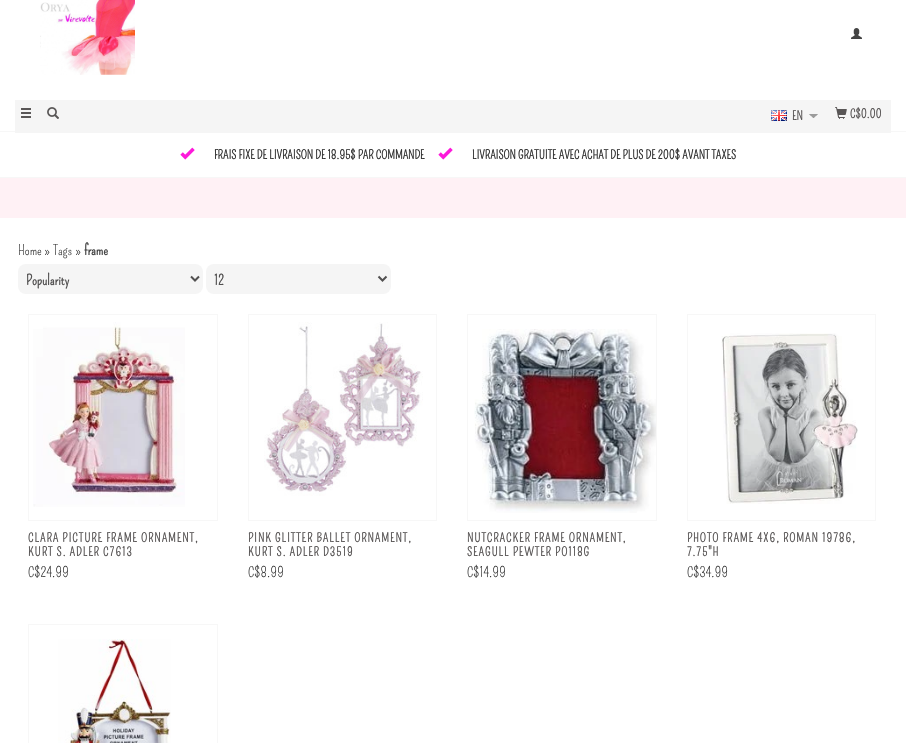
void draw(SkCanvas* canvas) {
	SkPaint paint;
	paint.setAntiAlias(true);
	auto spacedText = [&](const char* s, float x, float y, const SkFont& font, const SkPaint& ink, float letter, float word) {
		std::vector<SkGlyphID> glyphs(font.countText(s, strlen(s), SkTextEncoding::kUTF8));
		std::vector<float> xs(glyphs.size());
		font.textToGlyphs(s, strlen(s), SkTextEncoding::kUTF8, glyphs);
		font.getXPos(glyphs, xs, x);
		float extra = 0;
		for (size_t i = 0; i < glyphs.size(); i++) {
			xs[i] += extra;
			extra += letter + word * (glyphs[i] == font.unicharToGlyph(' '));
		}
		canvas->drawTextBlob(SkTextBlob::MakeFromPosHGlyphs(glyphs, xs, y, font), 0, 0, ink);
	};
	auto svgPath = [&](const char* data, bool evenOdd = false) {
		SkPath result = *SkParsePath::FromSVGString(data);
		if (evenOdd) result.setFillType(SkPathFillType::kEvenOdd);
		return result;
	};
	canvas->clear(0xffffffff);
	paint.setColor(0xfff7f7f7);
	canvas->drawRect(SkRect::MakeXYWH(0, 131, 906, 1), paint);
	canvas->drawImageRect(SkImages::DeferredFromEncodedData(SkData::MakeFromFileName("img1.png")), SkRect::MakeXYWH(40, 0, 95, 75), SkSamplingOptions());
	canvas->drawImageRect(SkImages::DeferredFromEncodedData(SkData::MakeFromFileName("img2.png")), SkRect::MakeXYWH(851, 28, 11, 11), SkSamplingOptions());
	paint.setColor(0xfff5f5f5);
	canvas->drawRect(SkRect::MakeXYWH(15, 100, 876, 33), paint);
	canvas->drawImageRect(SkImages::DeferredFromEncodedData(SkData::MakeFromFileName("img3.png")), SkRect::MakeXYWH(21, 108, 10, 10), SkSamplingOptions());
	canvas->drawImageRect(SkImages::DeferredFromEncodedData(SkData::MakeFromFileName("img4.png")), SkRect::MakeXYWH(47, 107, 12, 12), SkSamplingOptions());
	canvas->drawImageRect(SkImages::DeferredFromEncodedData(SkData::MakeFromFileName("img5.png")), SkRect::MakeXYWH(809, 114, 9, 4), SkSamplingOptions());
	canvas->drawImageRect(SkImages::DeferredFromEncodedData(SkData::MakeFromFileName("img6.png")), SkRect::MakeXYWH(771, 110, 16, 11), SkSamplingOptions());
	SkFont f1(fontMgr->matchFamilyStyle("Pompiere", SkFontStyle::Bold()), 12);
	f1.setSubpixel(true);
	paint.setColor(0xff595656);
	canvas->drawString("EN", 792, 120, f1, paint);
	canvas->drawImageRect(SkImages::DeferredFromEncodedData(SkData::MakeFromFileName("img7.png")), SkRect::MakeXYWH(835, 107, 12, 12), SkSamplingOptions());
	canvas->drawString("C$0.00", 850, 118, f1, paint);
	paint.setColor(0xfff7f7f7);
	canvas->drawRect(SkRect::MakeXYWH(0, 177, 906, 1), paint);
	canvas->drawImageRect(SkImages::DeferredFromEncodedData(SkData::MakeFromFileName("img8.png")), SkRect::MakeXYWH(180, 147, 15, 13), SkSamplingOptions());
	paint.setColor(0xff333333);
	canvas->drawString("FRAIS FIXE DE LIVRAISON DE 18.95$ PAR COMMANDE", 214, 159, f1, paint);
	canvas->drawImageRect(SkImages::DeferredFromEncodedData(SkData::MakeFromFileName("img8.png")), SkRect::MakeXYWH(438, 147, 15, 13), SkSamplingOptions());
	canvas->drawString("LIVRAISON GRATUITE AVEC ACHAT DE PLUS DE 200$ AVANT TAXES", 472, 159, f1, paint);
	paint.setColor(0xfffff1f5);
	canvas->drawRect(SkRect::MakeXYWH(0, 178, 906, 40), paint);
	SkFont f2(fontMgr->matchFamilyStyle("Pompiere", SkFontStyle::Normal()), 14);
	f2.setSubpixel(true);
	paint.setColor(0xff444444);
	canvas->drawString("Home", 18, 255, f2, paint);
	paint.setColor(0xff333333);
	canvas->drawString("»", 44, 255, f2, paint);
	paint.setColor(0xff444444);
	canvas->drawString("Tags", 53, 255, f2, paint);
	paint.setColor(0xff333333);
	canvas->drawString("»", 75, 255, f2, paint);
	SkFont f3(fontMgr->matchFamilyStyle("Pompiere", SkFontStyle::Bold()), 14);
	f3.setSubpixel(true);
	paint.setColor(0xff444444);
	canvas->drawString("frame", 84, 255, f3, paint);
	paint.setColor(0xfff5f5f5);
	canvas->drawRoundRect(SkRect::MakeXYWH(18, 264, 185, 30), 8, 8, paint);
	paint.setStroke(true);
	paint.setStrokeWidth(2);
	paint.setColor(0xff515050);
	canvas->drawPath(svgPath("M191 276.5L195 280.5L199 276.5"), paint);
	paint.setStroke(false);
	canvas->drawString("Popularity", 26, 285, f3, paint);
	paint.setColor(0xfff5f5f5);
	canvas->drawRoundRect(SkRect::MakeXYWH(206, 264, 185, 30), 8, 8, paint);
	paint.setStroke(true);
	paint.setColor(0xff515050);
	canvas->drawPath(svgPath("M378.5 276.5L382.5 280.5L386.5 276.5"), paint);
	paint.setStroke(false);
	canvas->drawString("12", 214, 285, f3, paint);
	paint.setStroke(true);
	paint.setStrokeWidth(1);
	paint.setColor(0xfff7f7f7);
	canvas->drawRect(SkRect::MakeXYWH(28.5, 314.5, 189, 206), paint);
	canvas->drawImageRect(SkImages::DeferredFromEncodedData(SkData::MakeFromFileName("img9.png")), SkRect::MakeXYWH(33, 322, 152, 185), SkSamplingOptions());
	paint.setStroke(false);
	paint.setColor(0xff595656);
	spacedText("CLARA PICTURE FRAME ORNAMENT,", 28, 542, f1, paint, 1, 0);
	spacedText("KURT S. ADLER C7613", 28, 556, f1, paint, 1, 0);
	paint.setColor(0xff333333);
	canvas->drawString("C$24.99", 28, 577, f2, paint);
	paint.setStroke(true);
	paint.setColor(0xfff7f7f7);
	canvas->drawRect(SkRect::MakeXYWH(248.5, 314.5, 188, 206), paint);
	canvas->drawImageRect(SkImages::DeferredFromEncodedData(SkData::MakeFromFileName("img10.png")), SkRect::MakeXYWH(264, 322, 159, 174), SkSamplingOptions());
	paint.setStroke(false);
	paint.setColor(0xff595656);
	spacedText("PINK GLITTER BALLET ORNAMENT,", 248, 542, f1, paint, 1, 0);
	spacedText("KURT S. ADLER D3519", 248, 556, f1, paint, 1, 0);
	paint.setColor(0xff333333);
	canvas->drawString("C$8.99", 248, 577, f2, paint);
	paint.setStroke(true);
	paint.setColor(0xfff7f7f7);
	canvas->drawRect(SkRect::MakeXYWH(467.5, 314.5, 189, 206), paint);
	canvas->drawImageRect(SkImages::DeferredFromEncodedData(SkData::MakeFromFileName("img11.png")), SkRect::MakeXYWH(474, 329, 182, 184), SkSamplingOptions());
	paint.setStroke(false);
	paint.setColor(0xff595656);
	spacedText("NUTCRACKER FRAME ORNAMENT,", 467, 542, f1, paint, 1, 0);
	spacedText("SEAGULL PEWTER PO118G", 467, 556, f1, paint, 1, 0);
	paint.setColor(0xff333333);
	canvas->drawString("C$14.99", 467, 577, f2, paint);
	paint.setStroke(true);
	paint.setColor(0xfff7f7f7);
	canvas->drawRect(SkRect::MakeXYWH(687.5, 314.5, 188, 206), paint);
	canvas->drawImageRect(SkImages::DeferredFromEncodedData(SkData::MakeFromFileName("img12.png")), SkRect::MakeXYWH(721, 333, 137, 171), SkSamplingOptions());
	paint.setStroke(false);
	paint.setColor(0xff595656);
	spacedText("PHOTO FRAME 4X6, ROMAN 19786,", 687, 542, f1, paint, 1, 0);
	spacedText("7.75\"H", 687, 556, f1, paint, 1, 0);
	paint.setColor(0xff333333);
	canvas->drawString("C$34.99", 687, 577, f2, paint);
	paint.setStroke(true);
	paint.setColor(0xfff7f7f7);
	canvas->drawRect(SkRect::MakeXYWH(28.5, 624.5, 189, 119), paint);
	canvas->drawImageRect(SkImages::DeferredFromEncodedData(SkData::MakeFromFileName("img13.png")), SkRect::MakeXYWH(58, 639, 113, 104), SkSamplingOptions());
}
